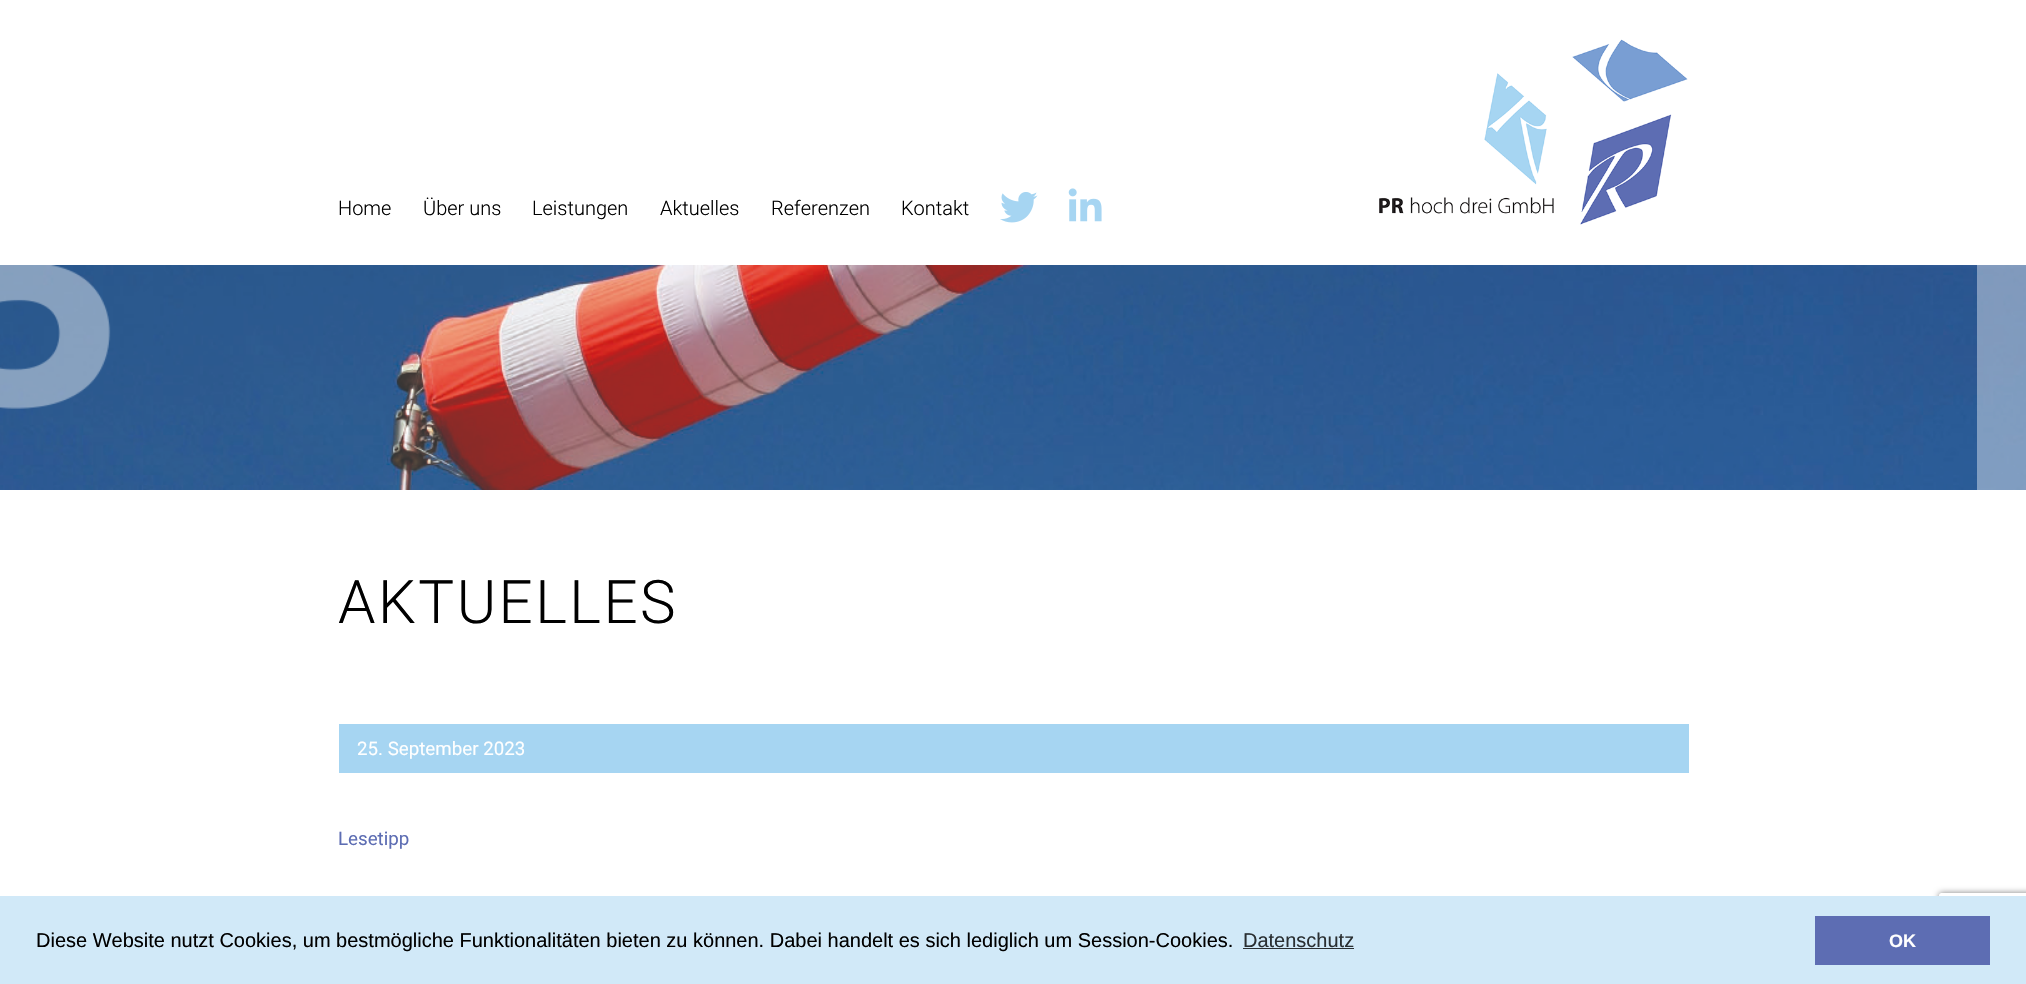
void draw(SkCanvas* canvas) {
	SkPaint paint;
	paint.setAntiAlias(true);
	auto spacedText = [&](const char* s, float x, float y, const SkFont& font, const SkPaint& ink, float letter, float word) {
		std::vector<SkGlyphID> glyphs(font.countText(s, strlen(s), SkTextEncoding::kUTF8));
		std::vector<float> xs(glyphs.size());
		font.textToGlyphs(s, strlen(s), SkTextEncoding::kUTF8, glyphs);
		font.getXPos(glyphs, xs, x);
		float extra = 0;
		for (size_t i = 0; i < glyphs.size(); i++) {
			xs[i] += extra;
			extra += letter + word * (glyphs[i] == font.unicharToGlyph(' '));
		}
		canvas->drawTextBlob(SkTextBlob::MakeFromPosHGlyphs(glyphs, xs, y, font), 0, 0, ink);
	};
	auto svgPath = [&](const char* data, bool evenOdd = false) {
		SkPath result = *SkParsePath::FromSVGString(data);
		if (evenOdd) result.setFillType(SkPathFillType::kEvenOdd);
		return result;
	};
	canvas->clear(0xffffffff);
	SkFont f1(fontMgr->matchFamilyStyle("Roboto", SkFontStyle(300, SkFontStyle::kNormal_Width, SkFontStyle::kUpright_Slant)), 20);
	f1.setSubpixel(true);
	paint.setColor(0xff000000);
	canvas->drawString("Home", 338, 215, f1, paint);
	canvas->drawString("Über uns", 423, 215, f1, paint);
	canvas->drawString("Leistungen", 532, 215, f1, paint);
	canvas->drawString("Aktuelles", 660, 215, f1, paint);
	canvas->drawString("Referenzen", 771, 215, f1, paint);
	canvas->drawString("Kontakt", 901, 215, f1, paint);
	canvas->drawImageRect(SkImages::DeferredFromEncodedData(SkData::MakeFromFileName("img1.png")), SkRect::MakeXYWH(1000, 192, 38, 31), SkSamplingOptions());
	canvas->drawImageRect(SkImages::DeferredFromEncodedData(SkData::MakeFromFileName("img2.png")), SkRect::MakeXYWH(1068, 188, 34, 34), SkSamplingOptions());
	canvas->drawImageRect(SkImages::DeferredFromEncodedData(SkData::MakeFromFileName("img3.png")), SkRect::MakeXYWH(1379, 39, 309, 186), SkSamplingOptions());
	canvas->drawImageRect(SkImages::DeferredFromEncodedData(SkData::MakeFromFileName("img4.png")), SkRect::MakeXYWH(0, 265, 2026, 225), SkSamplingOptions());
	canvas->drawImageRect(SkImages::DeferredFromEncodedData(SkData::MakeFromFileName("img5.png")), SkRect::MakeXYWH(0, 265, 111, 144), SkSamplingOptions());
	paint.setColor(0x66ffffff);
	canvas->drawRect(SkRect::MakeXYWH(1977, 265, 49, 225), paint);
	SkFont f2(fontMgr->matchFamilyStyle("Roboto", SkFontStyle(300, SkFontStyle::kNormal_Width, SkFontStyle::kUpright_Slant)), 60);
	f2.setSubpixel(true);
	paint.setColor(0xff000000);
	spacedText("AKTUELLES", 338, 623, f2, paint, 2.5, 0);
	paint.setColor(0xffa6d5f2);
	canvas->drawRect(SkRect::MakeXYWH(339, 724, 1350, 49), paint);
	SkFont f3(fontMgr->matchFamilyStyle("Roboto", SkFontStyle::Normal()), 18.75);
	f3.setSubpixel(true);
	paint.setColor(0xffffffff);
	canvas->drawString("25. September 2023", 357, 755, f3, paint);
	paint.setColor(0xff5d6db3);
	canvas->drawString("Lesetipp", 338, 845, f3, paint);
	canvas->save();
	canvas->clipPath(svgPath("M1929 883H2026V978H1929ZM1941.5 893H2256.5C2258 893 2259 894 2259 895.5V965.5C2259 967 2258 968 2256.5 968H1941.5C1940 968 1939 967 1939 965.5V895.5C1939 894 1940 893 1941.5 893Z", true), true);
	paint.setColor(0xff808080);
	paint.setMaskFilter(SkMaskFilter::MakeBlur(kNormal_SkBlurStyle, 3));
	canvas->drawRoundRect(SkRect::MakeXYWH(1939, 893, 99, 75), 2.5, 2.5, paint);
	paint.setMaskFilter(nullptr);
	canvas->restore();
	paint.setColor(0xffd1e9f8);
	canvas->drawRect(SkRect::MakeXYWH(0, 896, 2026, 88), paint);
	SkFont f4(fontMgr->matchFamilyStyle("Liberation Sans", SkFontStyle::Normal()), 20);
	f4.setSubpixel(true);
	paint.setColor(0xff000000);
	canvas->drawString("Diese Website nutzt Cookies, um bestmögliche Funktionalitäten bieten zu können. Dabei handelt es sich lediglich um Session-Cookies.", 36, 947, f4, paint);
	paint.setColor(0xff2a2f32);
	canvas->drawString("Datenschutz", 1243, 947, f4, paint);
	canvas->drawRect(SkRect::MakeXYWH(1243, 948, 111, 1), paint);
	paint.setColor(0xff5d6db3);
	canvas->drawRect(SkRect::MakeXYWH(1815, 916, 175, 49), paint);
	SkFont f5(fontMgr->matchFamilyStyle("Liberation Sans", SkFontStyle::Bold()), 18);
	f5.setSubpixel(true);
	paint.setColor(0xffffffff);
	canvas->drawString("OK", 1889, 947, f5, paint);
}
